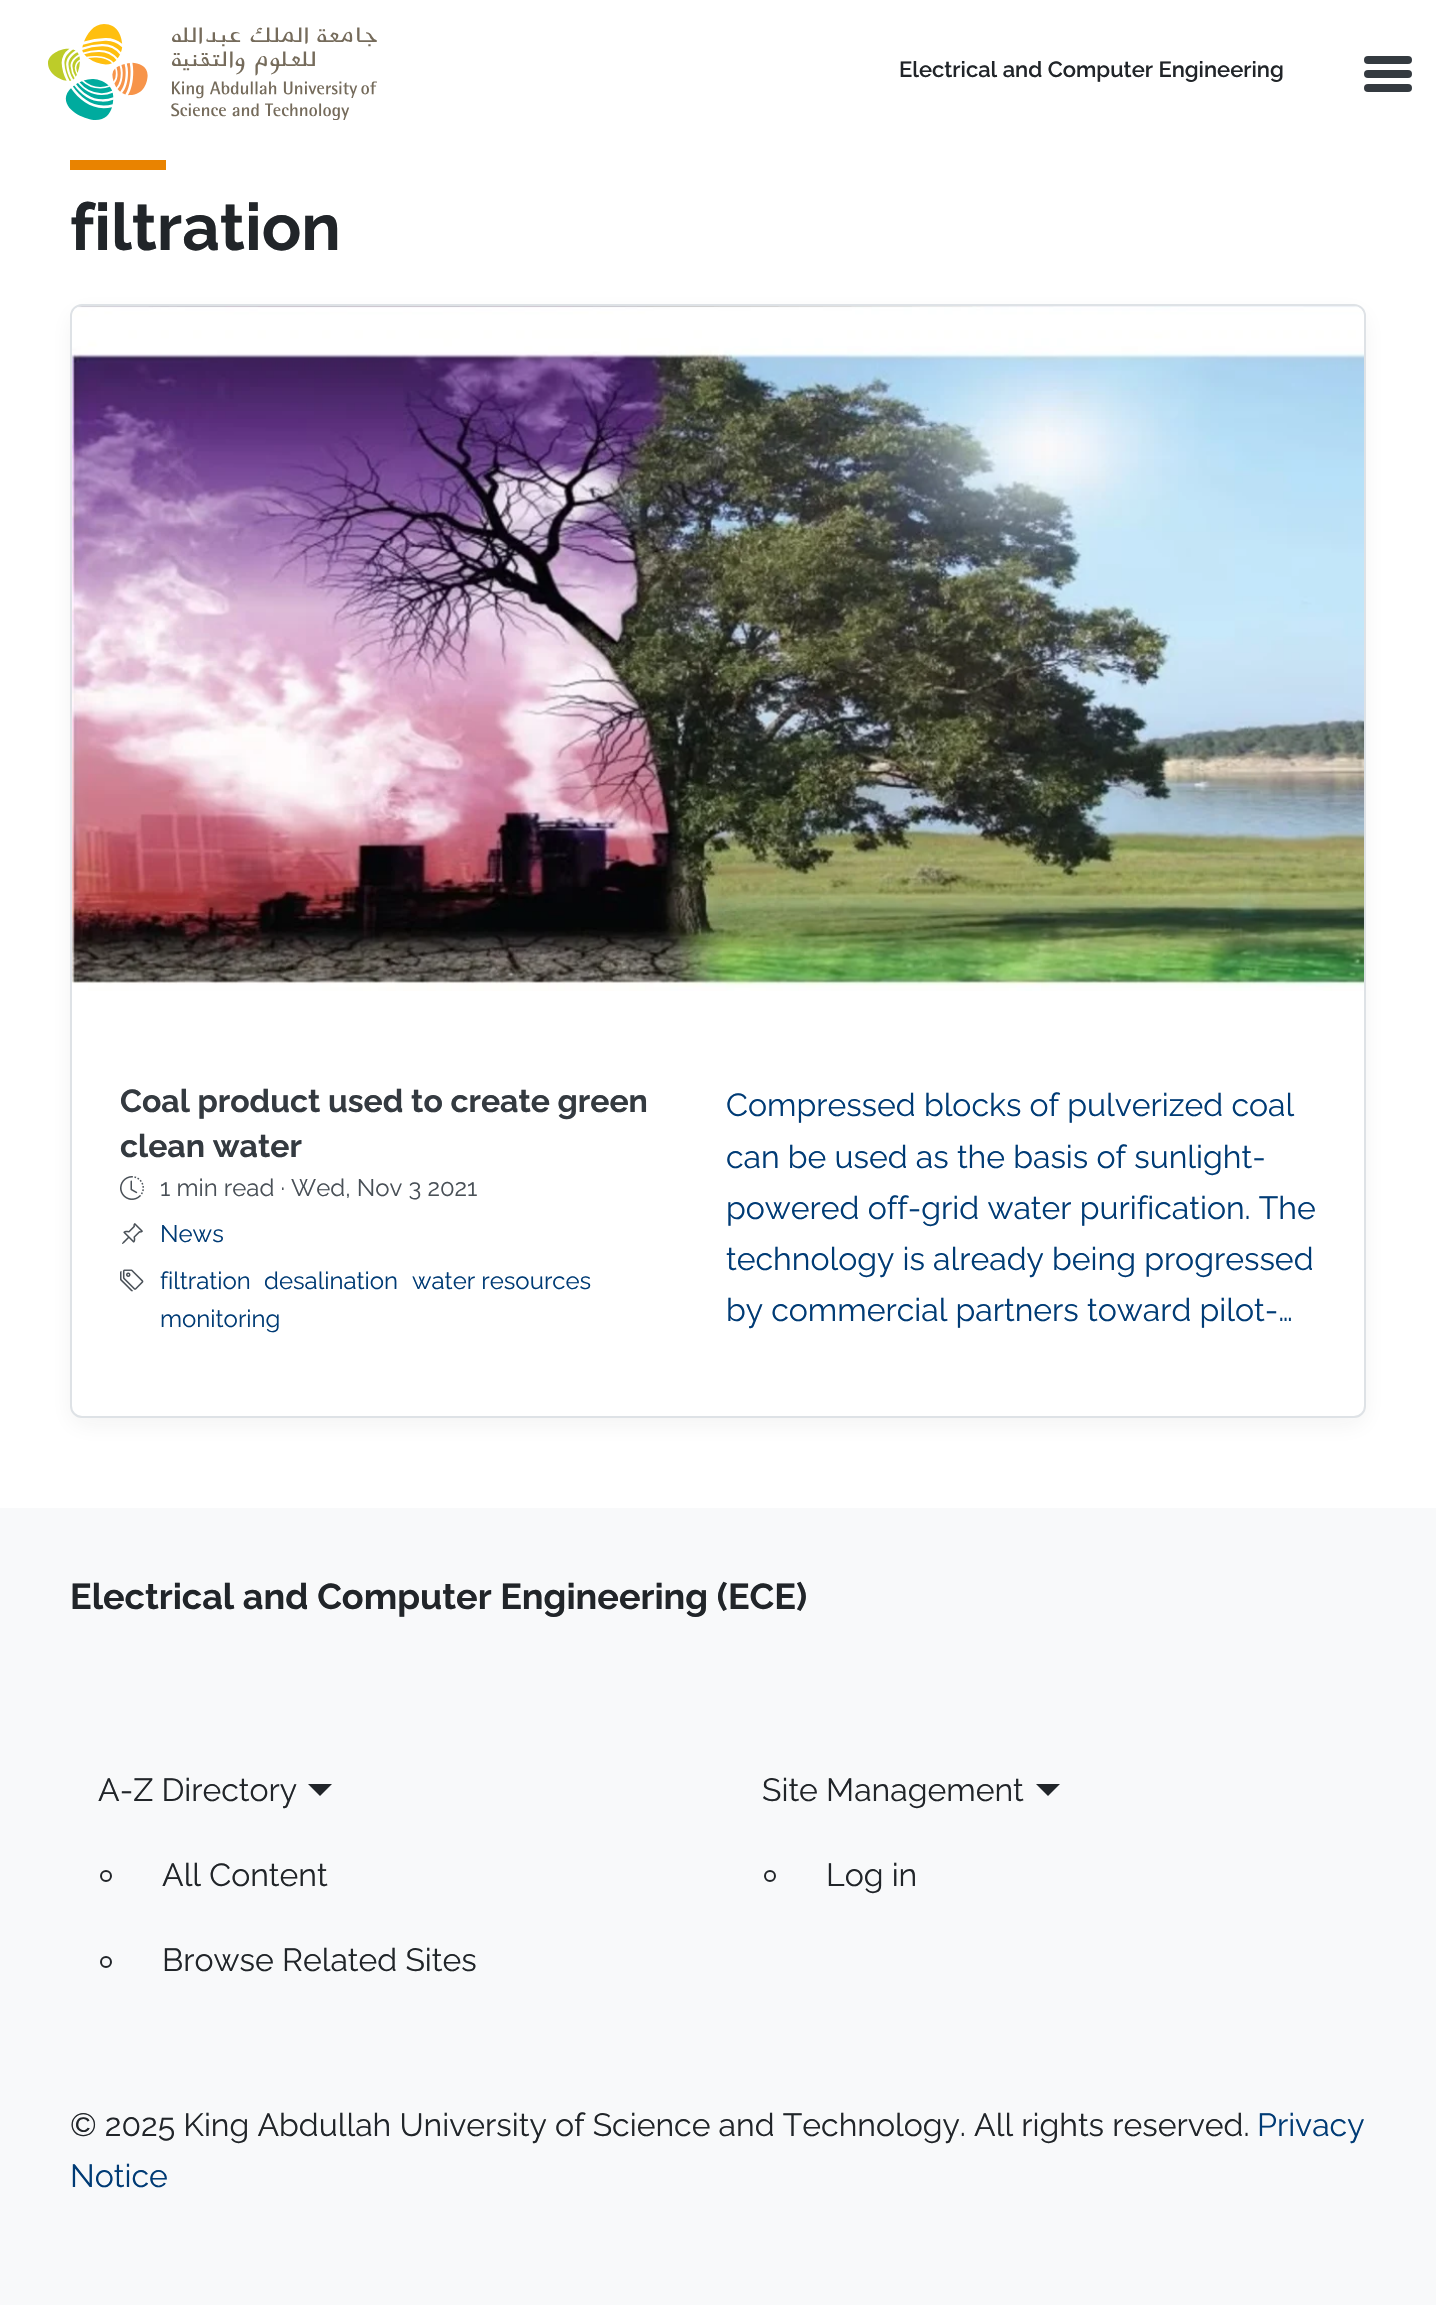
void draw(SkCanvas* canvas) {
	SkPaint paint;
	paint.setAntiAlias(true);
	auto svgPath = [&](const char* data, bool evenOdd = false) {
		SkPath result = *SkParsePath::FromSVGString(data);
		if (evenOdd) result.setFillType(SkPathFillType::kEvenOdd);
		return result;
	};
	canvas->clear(0xffffffff);
	canvas->drawImageRect(SkImages::DeferredFromEncodedData(SkData::MakeFromFileName("img1.png")), SkRect::MakeXYWH(48, 24, 329, 96), SkSamplingOptions());
	SkFont f1(fontMgr->matchFamilyStyle("Raleway", SkFontStyle(600, SkFontStyle::kNormal_Width, SkFontStyle::kUpright_Slant)), 22);
	f1.setSubpixel(true);
	paint.setColor(0xff212529);
	canvas->drawString("Electrical and Computer Engineering", 899, 77, f1, paint);
	paint.setColor(0xff343a40);
	canvas->drawRoundRect(SkRect::MakeXYWH(1364, 70, 48, 8), 4, 4, paint);
	canvas->drawRoundRect(SkRect::MakeXYWH(1364, 56, 48, 8), 4, 4, paint);
	canvas->drawRoundRect(SkRect::MakeXYWH(1364, 84, 48, 8), 4, 4, paint);
	paint.setColor(0xffe98300);
	canvas->drawRect(SkRect::MakeXYWH(70, 160, 96, 10), paint);
	SkFont f2(fontMgr->matchFamilyStyle("Raleway", SkFontStyle::Bold()), 65.5);
	f2.setSubpixel(true);
	paint.setColor(0xff212529);
	canvas->drawString("filtration", 70, 250, f2, paint);
	paint.setColor(0x0f212529);
	paint.setMaskFilter(SkMaskFilter::MakeBlur(kNormal_SkBlurStyle, 12));
	canvas->drawRoundRect(SkRect::MakeXYWH(72, 314, 1292, 1110), 10, 10, paint);
	paint.setMaskFilter(nullptr);
	paint.setColor(0xffffffff);
	canvas->drawRoundRect(SkRect::MakeXYWH(71, 305, 1294, 1112), 11, 11, paint);
	paint.setStroke(true);
	paint.setStrokeWidth(2);
	paint.setColor(0xffdee2e6);
	canvas->drawRoundRect(SkRect::MakeXYWH(71, 305, 1294, 1112), 11, 11, paint);
	canvas->drawImageRect(SkImages::DeferredFromEncodedData(SkData::MakeFromFileName("img2.png")), SkRect::MakeXYWH(72, 306, 1292, 685), SkSamplingOptions());
	SkFont f3(fontMgr->matchFamilyStyle("Raleway", SkFontStyle::Bold()), 32);
	f3.setSubpixel(true);
	paint.setStroke(false);
	paint.setColor(0xff343a40);
	canvas->drawString("Coal product used to create green", 120, 1112, f3, paint);
	canvas->drawString("clean water", 120, 1157, f3, paint);
	canvas->drawImageRect(SkImages::DeferredFromEncodedData(SkData::MakeFromFileName("img3.png")), SkRect::MakeXYWH(120, 1176, 24, 24), SkSamplingOptions());
	SkFont f4(fontMgr->matchFamilyStyle("Raleway", SkFontStyle::Normal()), 24);
	f4.setSubpixel(true);
	paint.setColor(0xff495057);
	canvas->drawString("1 min read · Wed, Nov 3 2021", 160, 1196, f4, paint);
	canvas->drawImageRect(SkImages::DeferredFromEncodedData(SkData::MakeFromFileName("img4.png")), SkRect::MakeXYWH(122, 1223, 21, 21), SkSamplingOptions());
	paint.setColor(0xff003b75);
	canvas->drawString("News", 160, 1242, f4, paint);
	canvas->drawImageRect(SkImages::DeferredFromEncodedData(SkData::MakeFromFileName("img5.png")), SkRect::MakeXYWH(120, 1269, 24, 23), SkSamplingOptions());
	canvas->drawString("filtration", 160, 1289, f4, paint);
	canvas->drawString("desalination", 264, 1289, f4, paint);
	canvas->drawString("water resources", 412, 1289, f4, paint);
	canvas->drawString("monitoring", 160, 1327, f4, paint);
	SkFont f5(fontMgr->matchFamilyStyle("Raleway", SkFontStyle::Normal()), 32);
	f5.setSubpixel(true);
	canvas->drawString("Compressed blocks of pulverized coal", 726, 1116, f5, paint);
	canvas->drawString("can be used as the basis of sunlight-", 726, 1168, f5, paint);
	canvas->drawString("powered off-grid water purification. The", 726, 1219, f5, paint);
	canvas->drawString("technology is already being progressed", 726, 1270, f5, paint);
	canvas->drawString("by commercial partners toward pilot-…", 726, 1321, f5, paint);
	paint.setColor(0xfff8f9fa);
	canvas->drawRect(SkRect::MakeXYWH(0, 1508, 1436, 797), paint);
	SkFont f6(fontMgr->matchFamilyStyle("Raleway", SkFontStyle::Bold()), 36);
	f6.setSubpixel(true);
	paint.setColor(0xff212529);
	canvas->drawString("Electrical and Computer Engineering (ECE)", 70, 1609, f6, paint);
	canvas->drawString("A-Z Directory", 98, 1801, f5, paint);
	canvas->drawPath(svgPath("M308 1784H332L320 1796Z"), paint);
	paint.setStroke(true);
	canvas->drawCircle(106, 1876, 5, paint);
	paint.setStroke(false);
	canvas->drawString("All Content", 162, 1886, f5, paint);
	paint.setStroke(true);
	canvas->drawCircle(106, 1962, 5, paint);
	paint.setStroke(false);
	canvas->drawString("Browse Related Sites", 162, 1971, f5, paint);
	canvas->drawString("Site Management", 762, 1801, f5, paint);
	canvas->drawPath(svgPath("M1036 1784H1060L1048 1796Z"), paint);
	paint.setStroke(true);
	canvas->drawCircle(770, 1876, 5, paint);
	paint.setStroke(false);
	canvas->drawString("Log in", 826, 1886, f5, paint);
	canvas->drawString("© 2025 King Abdullah University of Science and Technology. All rights reserved.", 70, 2136, f5, paint);
	paint.setColor(0xff003b75);
	canvas->drawString("Privacy", 1257, 2136, f5, paint);
	canvas->drawString("Notice", 70, 2187, f5, paint);
}
